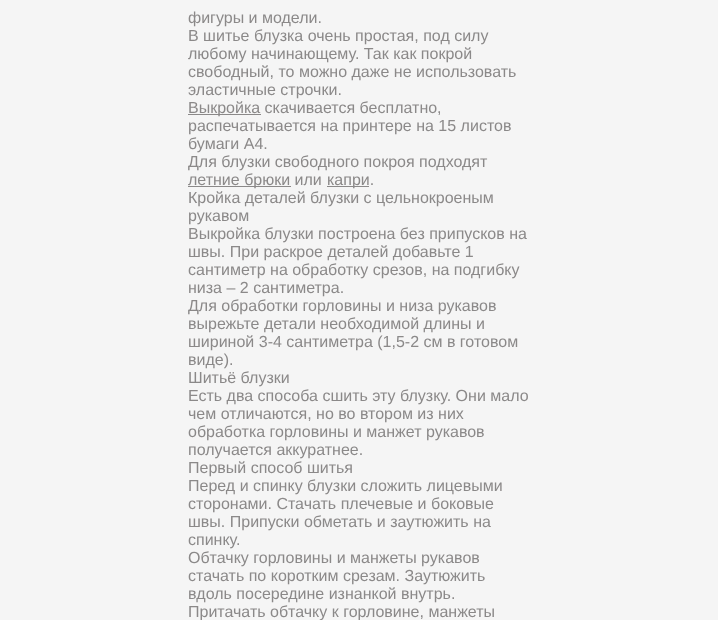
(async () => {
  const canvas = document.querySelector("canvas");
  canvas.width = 718;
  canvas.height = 620;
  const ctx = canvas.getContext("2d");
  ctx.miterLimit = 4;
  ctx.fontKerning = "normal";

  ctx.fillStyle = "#f5f5f5";
  ctx.fillRect(0, 0, 718, 620);
  for (const [x, y, w, h, color] of [
    [188, 114, 73, 1, "#8b8989"],
    [188, 186, 103, 1, "#8b8989"],
    [327, 186, 42, 1, "#8b8989"],
  ]) {
    ctx.fillStyle = color;
    ctx.fillRect(x, y, w, h);
  }
  ctx.font = "16px Liberation Sans";
  for (const [text, x, y] of [
    ["фигуры и модели.", 188, 23],
    ["В шитье блузка очень простая, под силу", 188, 41],
    ["любому начинающему. Так как покрой", 188, 59],
    ["свободный, то можно даже не использовать", 188, 77],
    ["эластичные строчки.", 188, 95],
    ["Выкройка скачивается бесплатно,", 188, 113],
    ["распечатывается на принтере на 15 листов", 188, 131],
    ["бумаги А4.", 188, 149],
    ["Для блузки свободного покроя подходят", 188, 167],
    ["летние брюки или", 188, 185],
    ["капри.", 327, 185],
    ["Кройка деталей блузки с цельнокроеным", 188, 203],
    ["рукавом", 188, 221],
    ["Выкройка блузки построена без припусков на", 188, 239],
    ["швы. При раскрое деталей добавьте 1", 188, 257],
    ["сантиметр на обработку срезов, на подгибку", 188, 275],
    ["низа – 2 сантиметра.", 188, 293],
    ["Для обработки горловины и низа рукавов", 188, 311],
    ["вырежьте детали необходимой длины и", 188, 329],
    ["шириной 3-4 сантиметра (1,5-2 см в готовом", 188, 347],
    ["виде).", 188, 365],
    ["Шитьё блузки", 188, 383],
    ["Есть два способа сшить эту блузку. Они мало", 188, 401],
    ["чем отличаются, но во втором из них", 188, 419],
    ["обработка горловины и манжет рукавов", 188, 437],
    ["получается аккуратнее.", 188, 455],
    ["Первый способ шитья", 188, 473],
    ["Перед и спинку блузки сложить лицевыми", 188, 491],
    ["сторонами. Стачать плечевые и боковые", 188, 509],
    ["швы. Припуски обметать и заутюжить на", 188, 527],
    ["спинку.", 188, 545],
    ["Обтачку горловины и манжеты рукавов", 188, 563],
    ["стачать по коротким срезам. Заутюжить", 188, 581],
    ["вдоль посередине изнанкой внутрь.", 188, 599],
    ["Притачать обтачку к горловине, манжеты", 188, 617],
  ]) {
    ctx.fillText(text, x, y);
  }
})();
